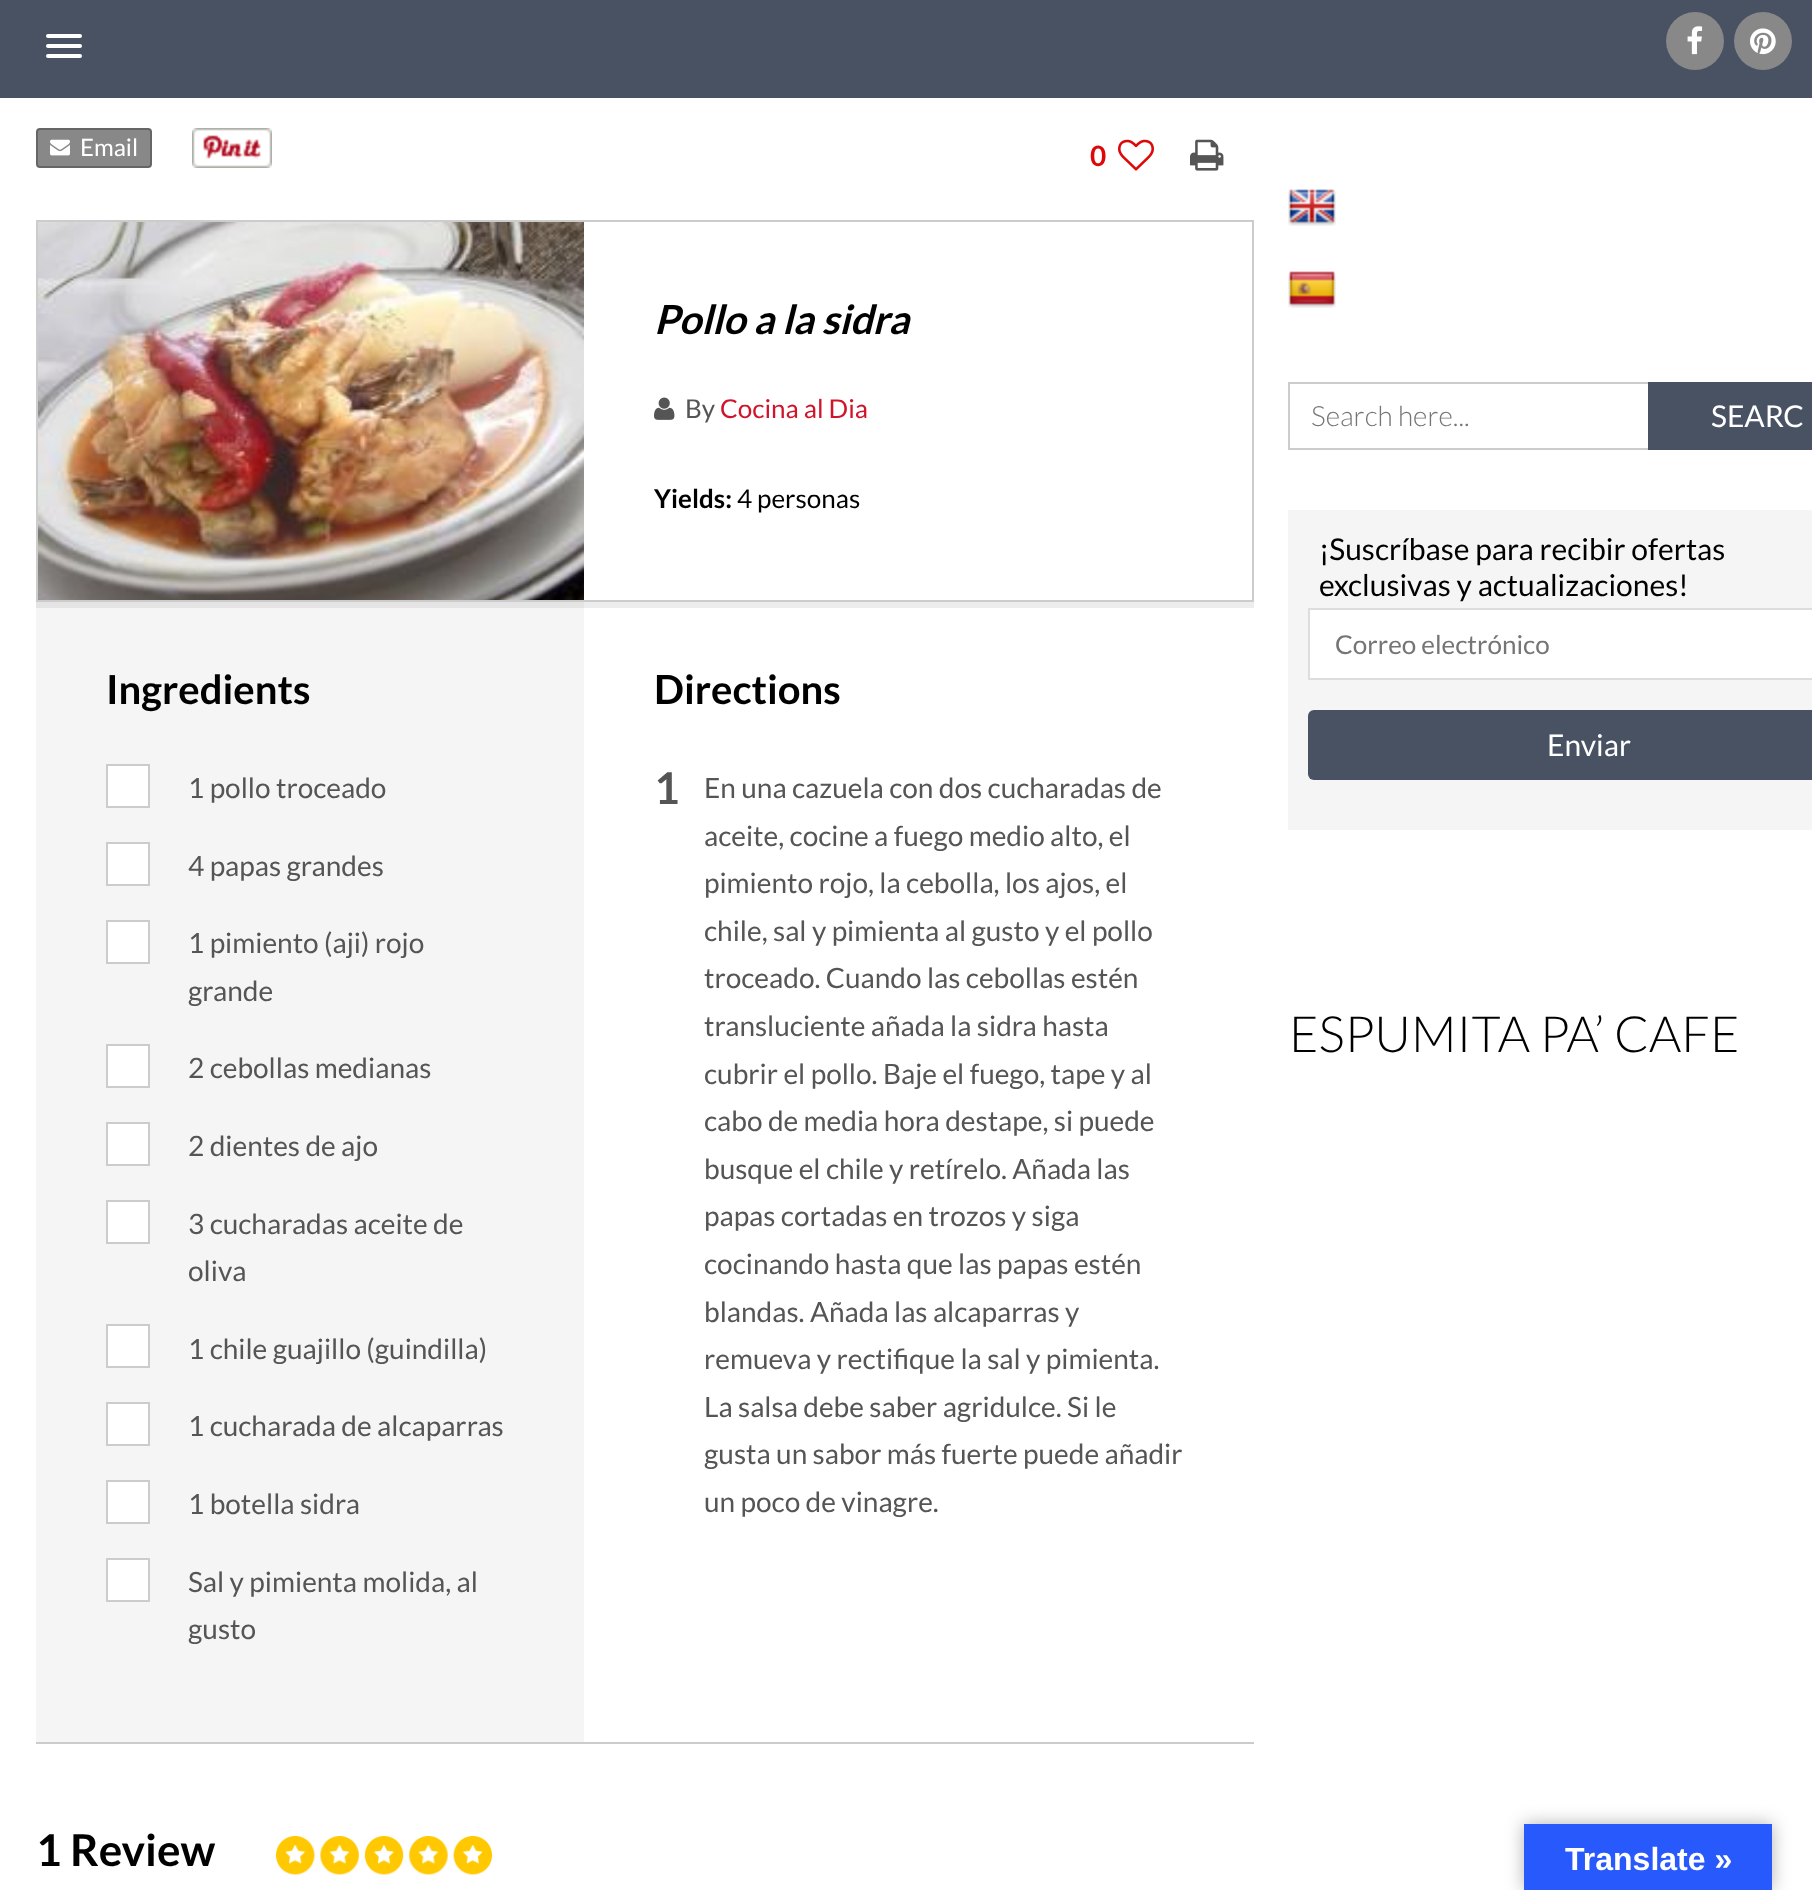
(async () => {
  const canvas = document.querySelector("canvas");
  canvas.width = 1812;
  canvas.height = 1890;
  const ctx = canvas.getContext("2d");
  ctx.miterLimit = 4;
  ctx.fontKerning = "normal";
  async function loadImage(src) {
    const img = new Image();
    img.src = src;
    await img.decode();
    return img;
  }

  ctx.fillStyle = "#ffffff";
  ctx.fillRect(0, 0, 1812, 1890);
  ctx.fillStyle = "#485263";
  ctx.fillRect(0, 0, 1812, 98);
  ctx.fillStyle = "#ffffff";
  ctx.beginPath();
  ctx.roundRect(46, 34, 36, 4, 2);
  ctx.fill();
  ctx.beginPath();
  ctx.roundRect(46, 44, 36, 4, 2);
  ctx.fill();
  ctx.beginPath();
  ctx.roundRect(46, 54, 36, 4, 2);
  ctx.fill();
  ctx.fillStyle = "#888888";
  ctx.beginPath();
  ctx.arc(1695, 41, 29, 0, Math.PI * 2);
  ctx.fill();
  ctx.drawImage(await loadImage("img/1.png"), 1687, 26, 16, 29);
  ctx.beginPath();
  ctx.arc(1763, 41, 29, 0, Math.PI * 2);
  ctx.fill();
  ctx.drawImage(await loadImage("img/2.png"), 1750, 28, 26, 27);
  ctx.fillStyle = "#ededed";
  ctx.fillRect(584, 602, 670, 6);
  ctx.fillStyle = "#888888";
  ctx.beginPath();
  ctx.roundRect(37, 129, 114, 38, 3);
  ctx.fill();
  ctx.strokeStyle = "#666666";
  ctx.lineWidth = 2;
  ctx.stroke();
  ctx.drawImage(await loadImage("img/3.png"), 50, 139, 20, 17);
  ctx.drawImage(await loadImage("img/4.png"), 192, 128, 80, 40);
  ctx.drawImage(await loadImage("img/5.png"), 1118, 139, 36, 32);
  ctx.drawImage(await loadImage("img/6.png"), 1190, 139, 34, 32);
  ctx.fillStyle = "#cccccc";
  ctx.fillRect(36, 1742, 1218, 2);
  ctx.strokeStyle = "#cccccc";
  ctx.strokeRect(37, 221, 1216, 380);
  ctx.drawImage(await loadImage("img/7.png"), 38, 222, 546, 378);
  ctx.drawImage(await loadImage("img/8.png"), 654, 397, 21, 23);
  ctx.fillStyle = "#f5f5f5";
  ctx.fillRect(36, 608, 548, 1134);
  ctx.fillStyle = "#e4e4e4";
  ctx.fillRect(36, 602, 548, 6);
  ctx.fillStyle = "#ffffff";
  ctx.beginPath();
  ctx.rect(107, 765, 42, 42);
  ctx.fill();
  ctx.stroke();
  ctx.beginPath();
  ctx.rect(107, 843, 42, 42);
  ctx.fill();
  ctx.stroke();
  ctx.beginPath();
  ctx.rect(107, 921, 42, 42);
  ctx.fill();
  ctx.stroke();
  ctx.beginPath();
  ctx.rect(107, 1045, 42, 42);
  ctx.fill();
  ctx.stroke();
  ctx.beginPath();
  ctx.rect(107, 1123, 42, 42);
  ctx.fill();
  ctx.stroke();
  ctx.beginPath();
  ctx.rect(107, 1201, 42, 42);
  ctx.fill();
  ctx.stroke();
  ctx.beginPath();
  ctx.rect(107, 1325, 42, 42);
  ctx.fill();
  ctx.stroke();
  ctx.beginPath();
  ctx.rect(107, 1403, 42, 42);
  ctx.fill();
  ctx.stroke();
  ctx.beginPath();
  ctx.rect(107, 1481, 42, 42);
  ctx.fill();
  ctx.stroke();
  ctx.beginPath();
  ctx.rect(107, 1559, 42, 42);
  ctx.fill();
  ctx.stroke();
  ctx.drawImage(await loadImage("img/9.png"), 276, 1836, 216, 39);
  ctx.drawImage(await loadImage("img/10.png"), 1288, 189, 48, 37);
  ctx.drawImage(await loadImage("img/11.png"), 1288, 271, 48, 37);
  for (const [x, y, w, h, color] of [
    [1288, 382, 360, 2, "#cccccc"],
    [1288, 448, 360, 2, "#cccccc"],
    [1288, 382, 2, 68, "#cccccc"],
    [1648, 382, 164, 68, "#485263"],
    [1288, 510, 524, 320, "#f5f5f5"],
  ]) {
    ctx.fillStyle = color;
    ctx.fillRect(x, y, w, h);
  }
  ctx.fillStyle = "#ffffff";
  ctx.beginPath();
  ctx.rect(1309, 609, 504, 70);
  ctx.fill();
  ctx.strokeStyle = "#dddddd";
  ctx.stroke();
  ctx.fillStyle = "#485263";
  ctx.beginPath();
  ctx.roundRect(1308, 710, 504, 70, [6, 0, 0, 6]);
  ctx.fill();
  ctx.fillStyle = "rgba(0, 0, 0, 0.3)";
  ctx.filter = "blur(9px)";
  ctx.beginPath();
  ctx.rect(1524, 1824, 248, 66);
  ctx.fill();
  ctx.filter = "none";
  ctx.fillStyle = "#2859fc";
  ctx.fillRect(1524, 1824, 248, 66);
  ctx.font = "24px Lato";
  ctx.fillStyle = "#ffffff";
  ctx.fillText("Email", 80, 156);
  ctx.font = "bold 28px Lato";
  ctx.fillStyle = "#de0808";
  ctx.fillText("0", 1090, 166);
  ctx.font = "italic bold 40px Lato";
  ctx.fillStyle = "#000000";
  ctx.fillText("Pollo a la sidra", 654, 334);
  ctx.font = "26px Lato";
  ctx.fillStyle = "#555555";
  ctx.fillText("By", 685, 418);
  ctx.fillStyle = "#cf142b";
  ctx.fillText("Cocina al Dia", 720, 418);
  ctx.font = "bold 26px Lato";
  ctx.fillStyle = "#000000";
  ctx.fillText("Yields:", 654, 508);
  ctx.font = "26px Lato";
  ctx.fillText("4 personas", 737, 508);
  ctx.font = "bold 40px Lato";
  ctx.fillText("Ingredients", 106, 704);
  ctx.font = "28px Lato";
  ctx.fillStyle = "#555555";
  for (const [text, x, y] of [
    ["1 pollo troceado", 188, 798],
    ["4 papas grandes", 188, 876],
    ["1 pimiento (aji) rojo", 188, 953],
    ["grande", 188, 1001],
    ["2 cebollas medianas", 188, 1078],
    ["2 dientes de ajo", 188, 1156],
    ["3 cucharadas aceite de", 188, 1234],
    ["oliva", 188, 1281],
    ["1 chile guajillo (guindilla)", 188, 1359],
    ["1 cucharada de alcaparras", 188, 1436],
    ["1 botella sidra", 188, 1514],
    ["Sal y pimienta molida, al", 188, 1592],
    ["gusto", 188, 1639],
  ]) {
    ctx.fillText(text, x, y);
  }
  ctx.font = "bold 40px Lato";
  ctx.fillStyle = "#000000";
  ctx.fillText("Directions", 654, 704);
  ctx.font = "bold 44px Lato";
  ctx.fillStyle = "#555555";
  ctx.fillText("1", 654, 804);
  ctx.font = "28px Lato";
  for (const [text, x, y] of [
    ["En una cazuela con dos cucharadas de", 704, 798],
    ["aceite, cocine a fuego medio alto, el", 704, 846],
    ["pimiento rojo, la cebolla, los ajos, el", 704, 893],
    ["chile, sal y pimienta al gusto y el pollo", 704, 941],
    ["troceado. Cuando las cebollas estén", 704, 988],
    ["transluciente añada la sidra hasta", 704, 1036],
    ["cubrir el pollo. Baje el fuego, tape y al", 704, 1084],
    ["cabo de media hora destape, si puede", 704, 1131],
    ["busque el chile y retírelo. Añada las", 704, 1179],
    ["papas cortadas en trozos y siga", 704, 1226],
    ["cocinando hasta que las papas estén", 704, 1274],
    ["blandas. Añada las alcaparras y", 704, 1322],
    ["remueva y rectifique la sal y pimienta.", 704, 1369],
    ["La salsa debe saber agridulce. Si le", 704, 1417],
    ["gusta un sabor más fuerte puede añadir", 704, 1464],
    ["un poco de vinagre.", 704, 1512],
  ]) {
    ctx.fillText(text, x, y);
  }
  ctx.font = "bold 44px Lato";
  ctx.fillStyle = "#000000";
  ctx.fillText("1 Review", 36, 1866);
  ctx.font = "300 28px Lato";
  ctx.fillStyle = "#757575";
  ctx.fillText("Search here...", 1311, 426);
  ctx.font = "30px Lato";
  ctx.fillStyle = "#ffffff";
  ctx.fillText("SEARC", 1711, 427);
  ctx.fillStyle = "#000000";
  ctx.fillText("¡Suscríbase para recibir ofertas", 1319, 560);
  ctx.fillText("exclusivas y actualizaciones!", 1319, 596);
  ctx.font = "26px Lato";
  ctx.fillStyle = "#757575";
  ctx.fillText("Correo electrónico", 1335, 654);
  ctx.font = "30px Lato";
  ctx.fillStyle = "#ffffff";
  ctx.fillText("Enviar", 1547, 756);
  ctx.font = "300 50px Lato";
  ctx.fillStyle = "#000000";
  ctx.fillText("ESPUMITA PA’ CAFE", 1289, 1052);
  ctx.font = "bold 32px Liberation Sans";
  ctx.fillStyle = "#ffffff";
  ctx.fillText("Translate »", 1565, 1870);
})();
